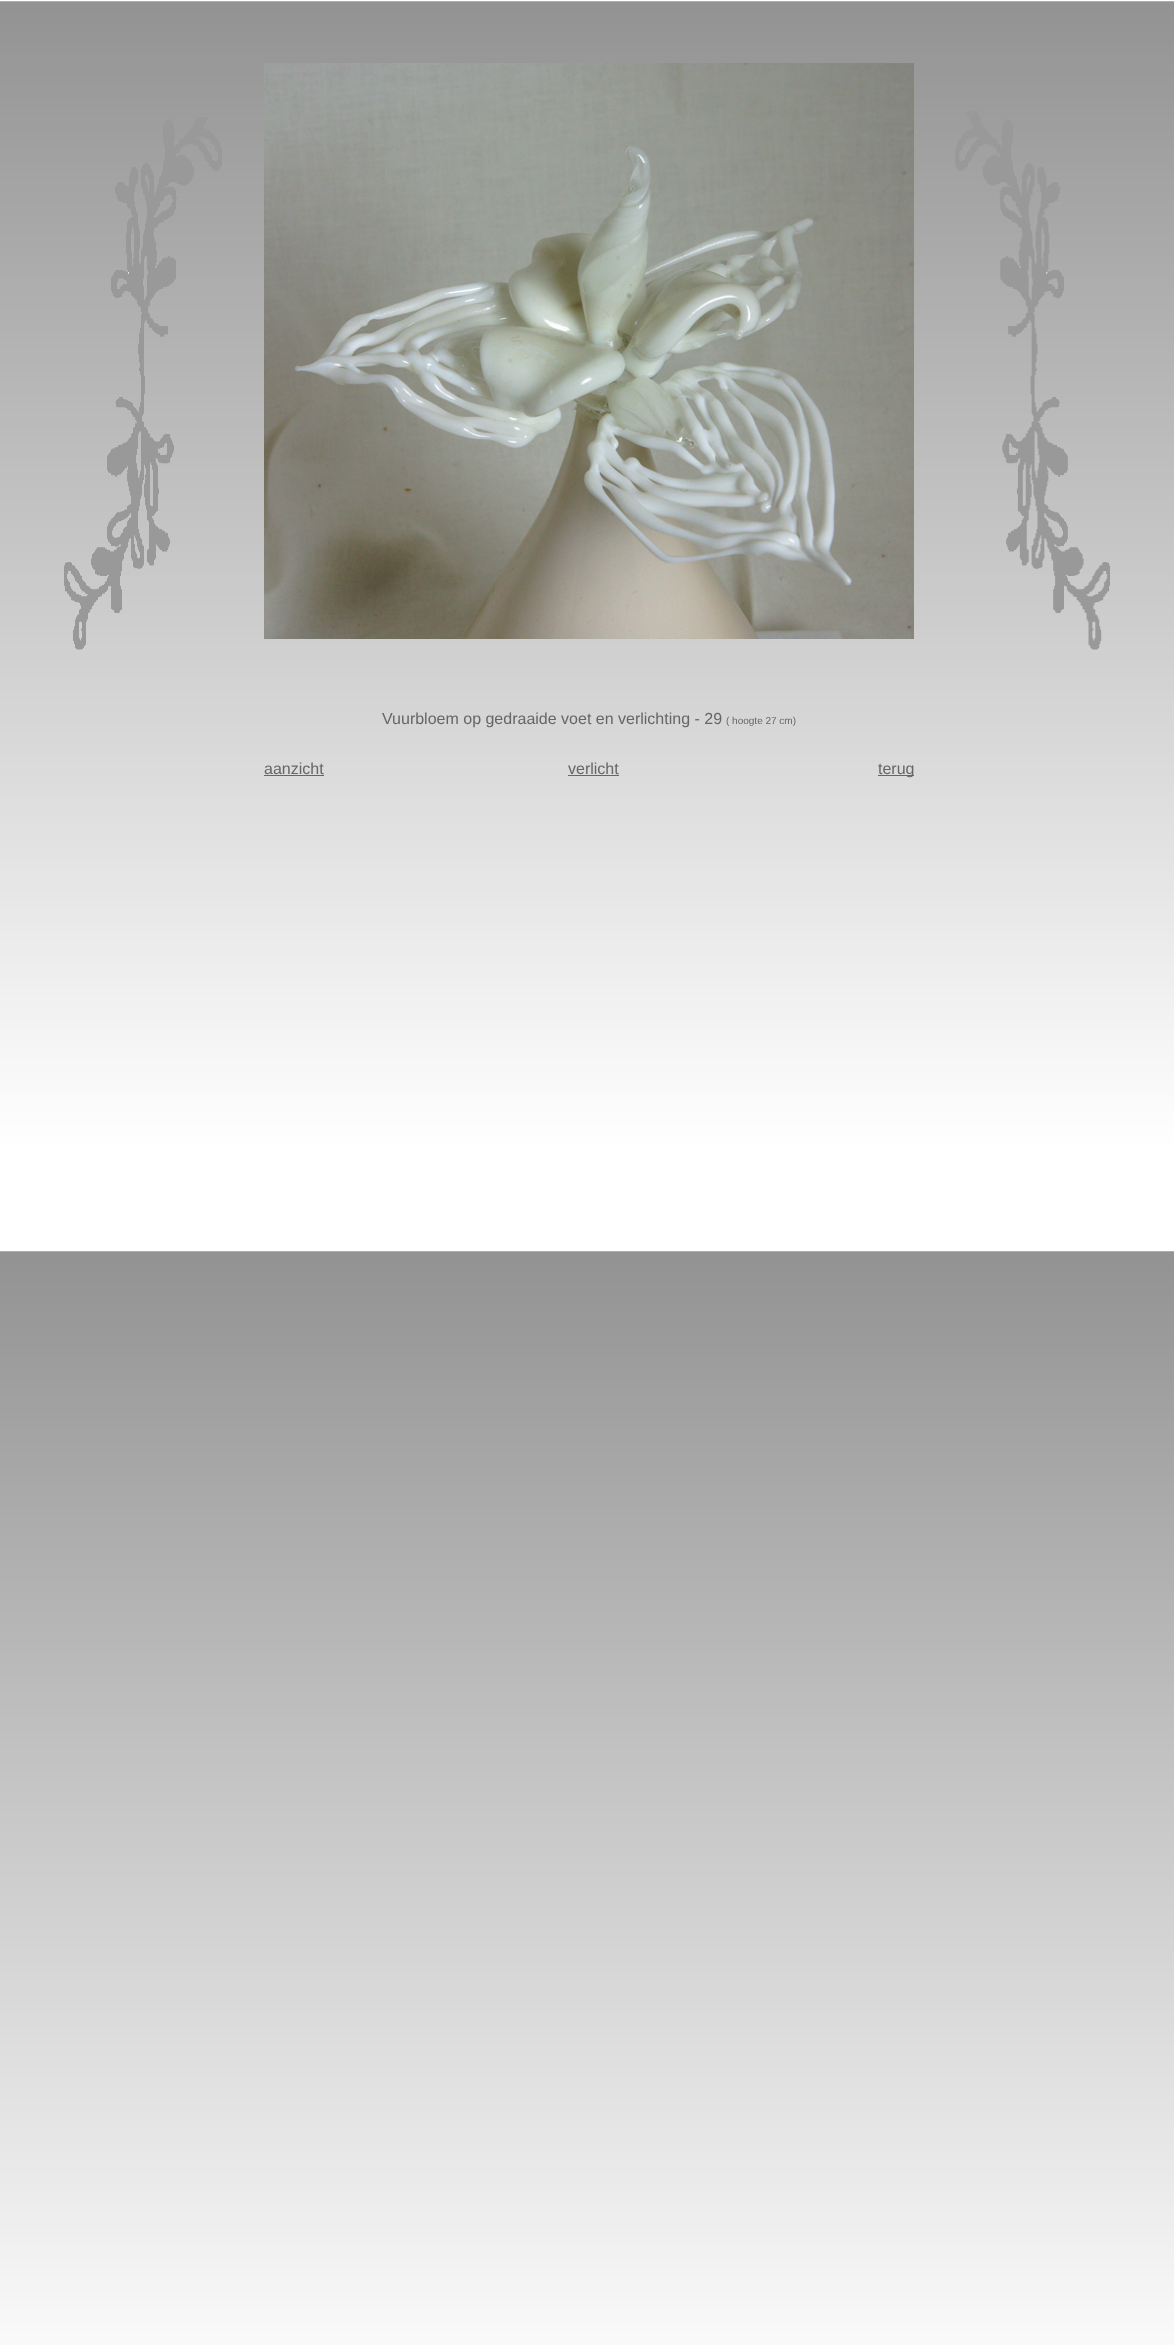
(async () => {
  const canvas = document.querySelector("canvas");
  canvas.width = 1174;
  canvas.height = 2345;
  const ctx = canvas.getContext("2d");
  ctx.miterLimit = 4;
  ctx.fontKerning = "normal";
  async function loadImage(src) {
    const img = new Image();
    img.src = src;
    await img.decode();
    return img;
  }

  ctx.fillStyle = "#ffffff";
  ctx.fillRect(0, 0, 1174, 2345);
  ctx.drawImage(await loadImage("img/1.png"), 0, 1, 1174, 2344);
  ctx.drawImage(await loadImage("img/2.png"), 64, 117, 158, 533);
  ctx.drawImage(await loadImage("img/3.png"), 955, 111, 155, 539);
  ctx.drawImage(await loadImage("img/4.png"), 264, 63, 650, 576);
  for (const [x, y, w, h, color] of [
    [264, 775, 60, 1, "#666666"],
    [568, 775, 51, 1, "#666666"],
    [878, 775, 36, 1, "#666666"],
  ]) {
    ctx.fillStyle = color;
    ctx.fillRect(x, y, w, h);
  }
  ctx.font = "16px Liberation Sans";
  ctx.fillText("Vuurbloem op gedraaide voet en verlichting - 29", 382, 724);
  ctx.font = "10px Liberation Sans";
  ctx.fillText("( hoogte 27 cm)", 726, 724);
  ctx.font = "16px Liberation Sans";
  for (const [text, x, y] of [
    ["aanzicht", 264, 774],
    ["verlicht", 568, 774],
    ["terug", 878, 774],
  ]) {
    ctx.fillText(text, x, y);
  }
})();
